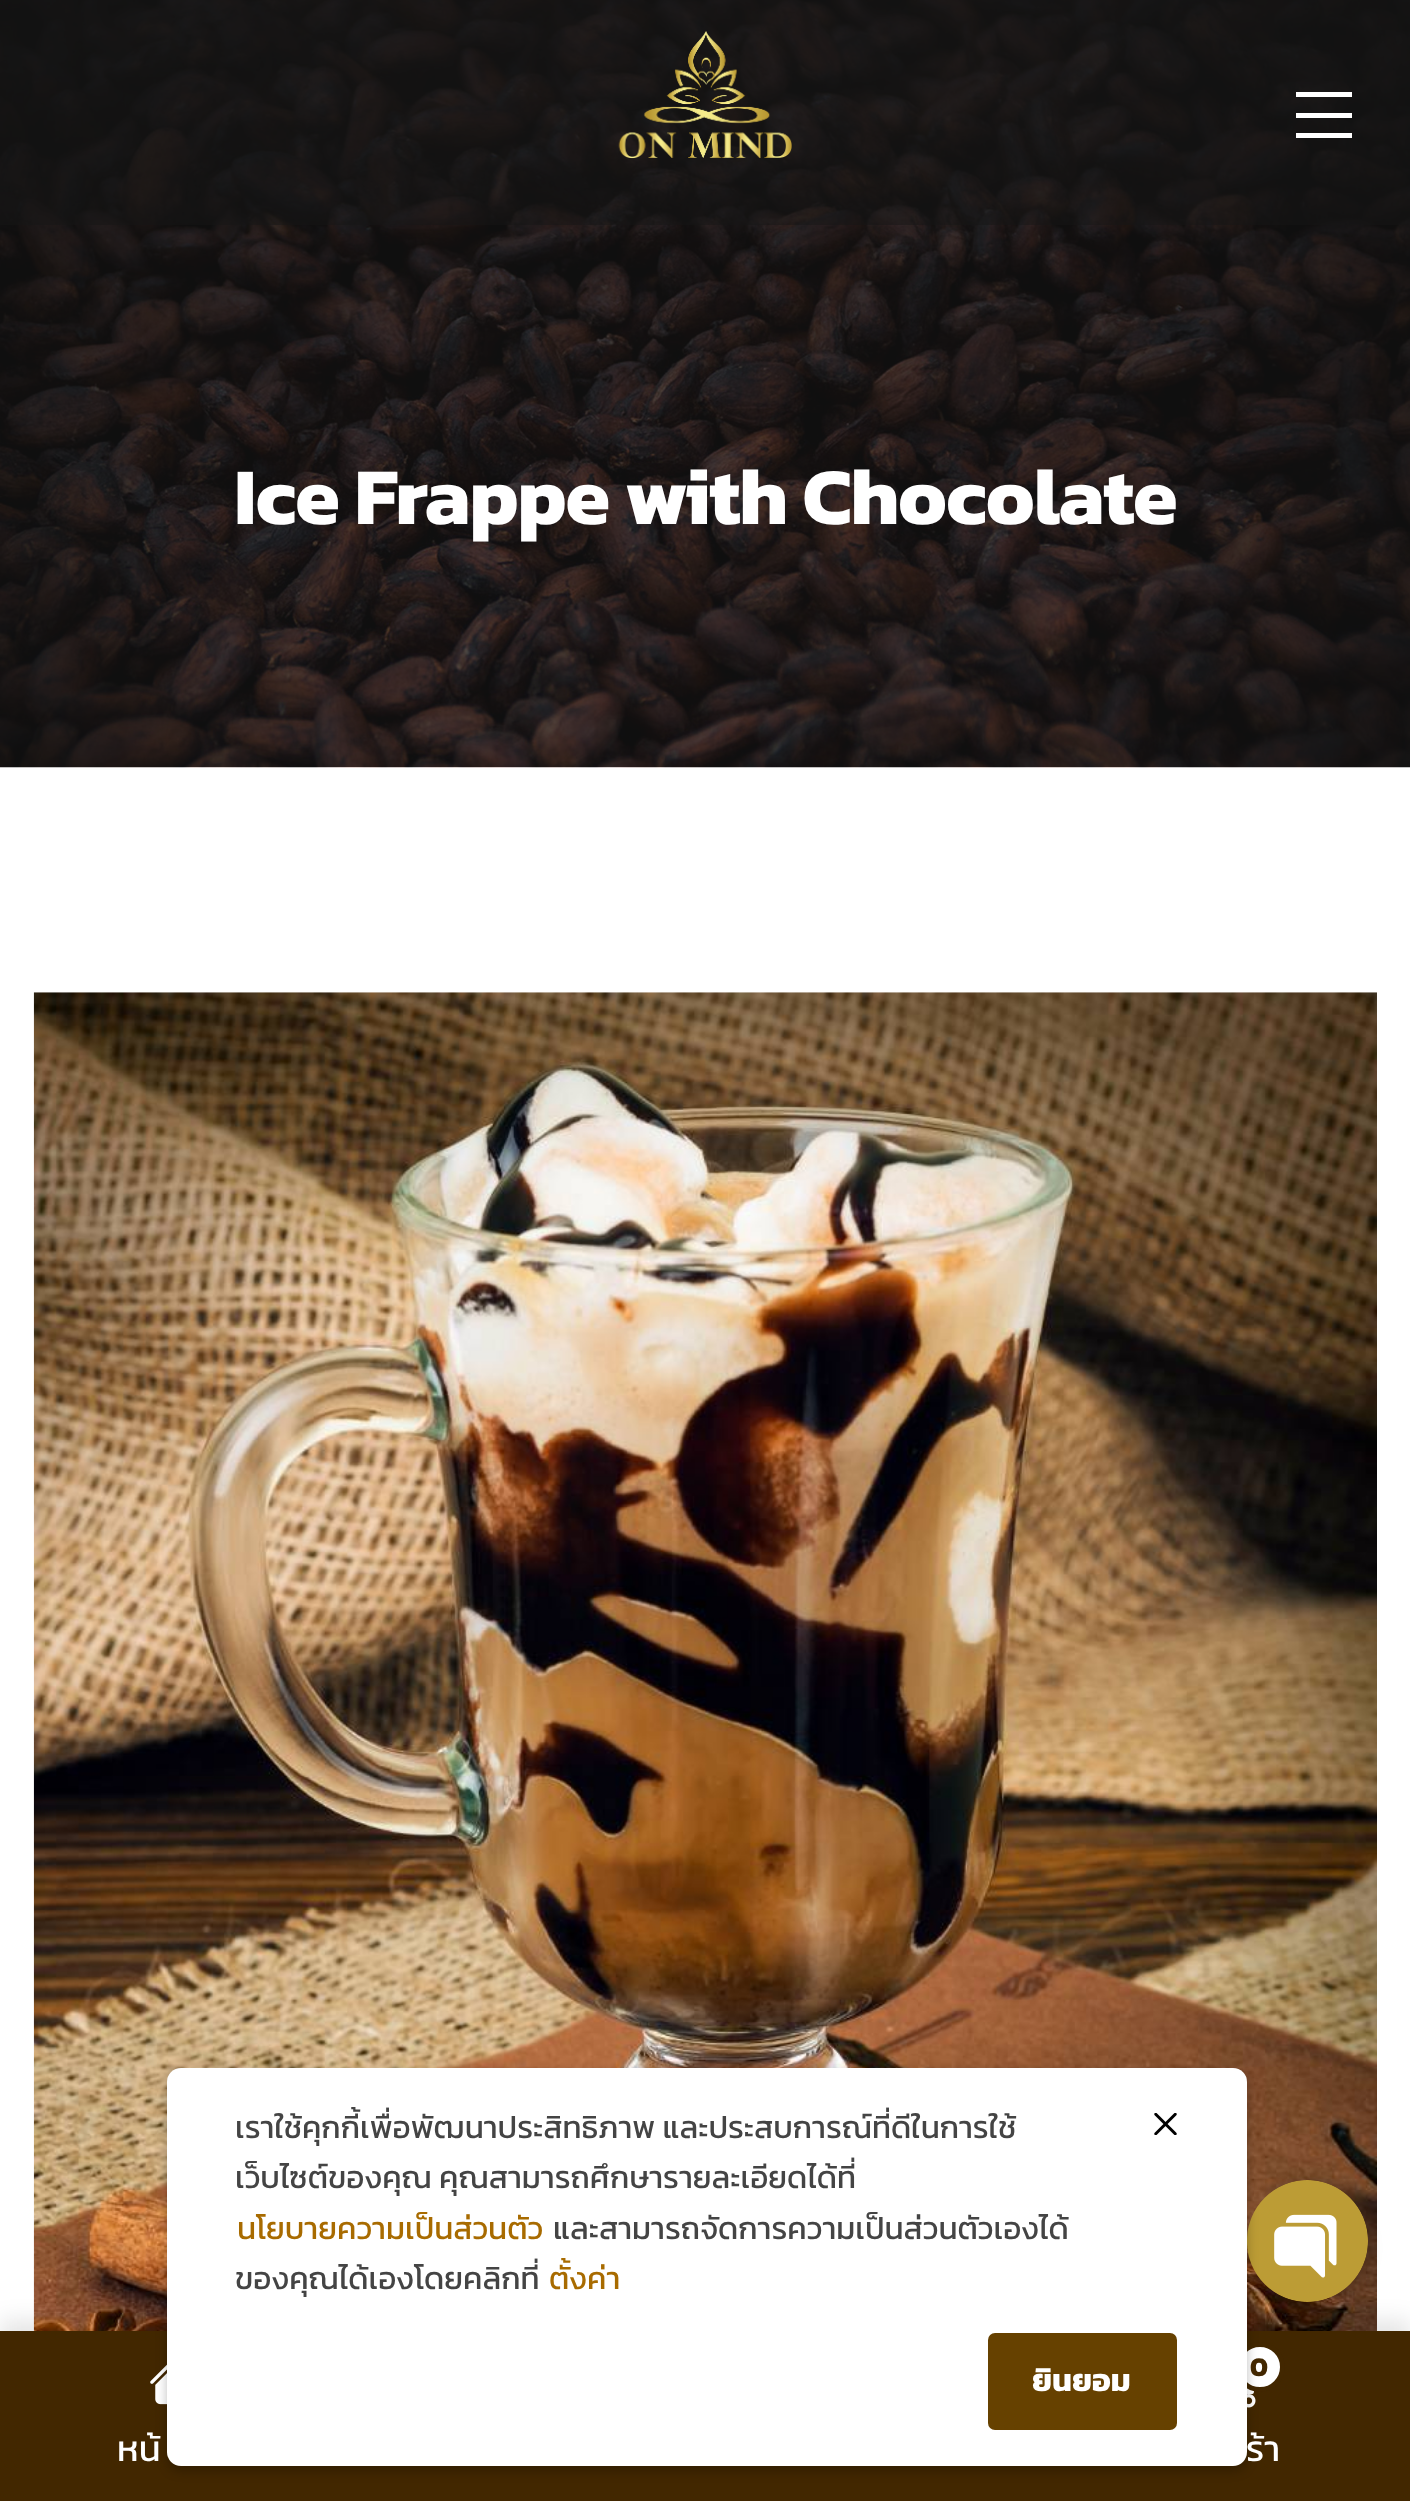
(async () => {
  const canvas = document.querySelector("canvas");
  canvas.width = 1410;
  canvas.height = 2501;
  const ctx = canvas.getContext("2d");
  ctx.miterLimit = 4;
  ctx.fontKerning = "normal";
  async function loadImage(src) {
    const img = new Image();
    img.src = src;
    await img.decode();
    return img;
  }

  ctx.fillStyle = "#ffffff";
  ctx.fillRect(0, 0, 1410, 2501);
  ctx.drawImage(await loadImage("img/2.png"), 0, 0, 1410, 768);
  ctx.fillStyle = "rgba(21, 21, 21, 0.5)";
  ctx.fillRect(0, 0, 1410, 225);
  ctx.drawImage(await loadImage("img/1.png"), 618, 31, 174, 128);
  for (const [x, y, w, h, color] of [
    [1296, 92, 56, 5, "#ffffff"],
    [1296, 113, 56, 5, "#ffffff"],
    [1296, 133, 56, 5, "#ffffff"],
  ]) {
    ctx.fillStyle = color;
    ctx.fillRect(x, y, w, h);
  }
  ctx.drawImage(await loadImage("img/3.png"), 33, 992, 1344, 1339);
  ctx.fillStyle = "rgba(0, 0, 0, 0.25)";
  ctx.filter = "blur(7px)";
  ctx.beginPath();
  ctx.roundRect(1247, 2187, 121, 122, 60.5);
  ctx.fill();
  ctx.filter = "none";
  ctx.fillStyle = "rgba(0, 0, 0, 0.1)";
  ctx.filter = "blur(11px)";
  ctx.beginPath();
  ctx.rect(0, 2320, 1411, 171);
  ctx.fill();
  ctx.filter = "none";
  ctx.drawImage(await loadImage("img/5.png"), 1247, 2180, 121, 122);
  ctx.fillStyle = "#422700";
  ctx.fillRect(0, 2331, 1410, 170);
  ctx.drawImage(await loadImage("img/6.png"), 150, 2364, 17, 41);
  ctx.drawImage(await loadImage("img/7.png"), 1247, 2388, 9, 20);
  ctx.fillStyle = "#ffffff";
  ctx.beginPath();
  ctx.arc(1260, 2367, 22.5, 0, Math.PI * 2);
  ctx.fill();
  ctx.strokeStyle = "#422700";
  ctx.lineWidth = 5;
  ctx.stroke();
  ctx.fillStyle = "rgba(0, 0, 0, 0.25)";
  ctx.filter = "blur(5.5px)";
  ctx.beginPath();
  ctx.roundRect(167, 2072, 1080, 399, 14);
  ctx.fill();
  ctx.filter = "none";
  ctx.fillStyle = "#ffffff";
  ctx.beginPath();
  ctx.roundRect(167, 2068, 1080, 398, 14);
  ctx.fill();
  ctx.drawImage(await loadImage("img/4.png"), 1154, 2113, 23, 22);
  ctx.fillStyle = "#664100";
  ctx.beginPath();
  ctx.roundRect(988, 2333, 189, 97, 7);
  ctx.fill();
  ctx.letterSpacing = "-1.1px";
  ctx.font = "bold 81px Kanit";
  ctx.fillStyle = "#ffffff";
  ctx.fillText("Ice Frappe with Chocolate", 234, 524);
  ctx.letterSpacing = "0px";
  ctx.font = "31.5px Kanit";
  ctx.fillStyle = "#444444";
  ctx.fillText("เราใช้คุกกี้เพื่อพัฒนาประสิทธิภาพ และประสบการณ์ที่ดีในการใช้", 235, 2138);
  ctx.fillText("เว็บไซต์ของคุณ คุณสามารถศึกษารายละเอียดได้ที่", 235, 2188);
  ctx.fillStyle = "#a86b00";
  ctx.fillText("นโยบายความเป็นส่วนตัว", 237, 2239);
  ctx.fillStyle = "#444444";
  ctx.fillText("และสามารถจัดการความเป็นส่วนตัวเองได้", 553, 2239);
  ctx.fillText("ของคุณได้เองโดยคลิกที่", 235, 2289);
  ctx.fillStyle = "#a86b00";
  ctx.fillText("ตั้งค่า", 549, 2289);
  ctx.font = "bold 31.5px Kanit";
  ctx.fillStyle = "#ffffff";
  ctx.fillText("ยินยอม", 1032, 2391);
  ctx.font = "36px Kanit";
  ctx.fillText("หน้", 117, 2461);
  ctx.font = "bold 27px Kanit";
  ctx.fillStyle = "#422700";
  ctx.fillText("0", 1250, 2376);
  ctx.font = "36px Kanit";
  ctx.fillStyle = "#ffffff";
  ctx.fillText("ร้า", 1246, 2461);
})();
